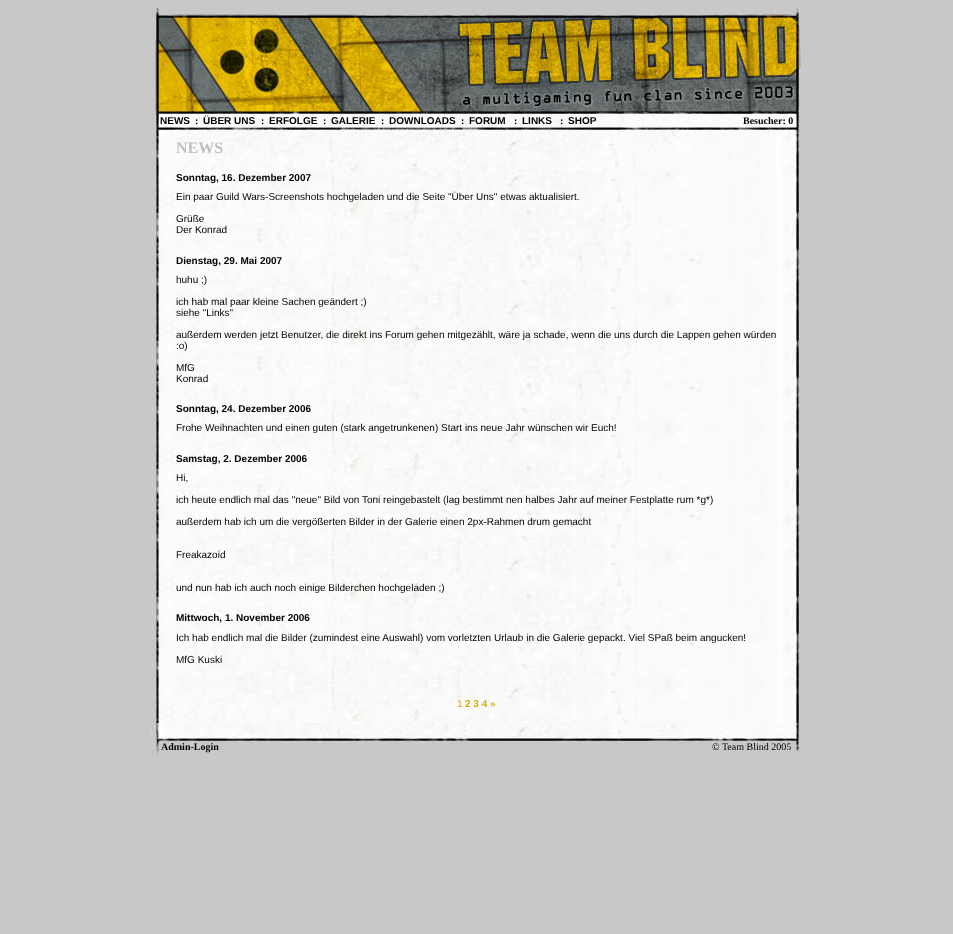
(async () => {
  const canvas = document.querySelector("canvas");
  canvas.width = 953;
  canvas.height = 934;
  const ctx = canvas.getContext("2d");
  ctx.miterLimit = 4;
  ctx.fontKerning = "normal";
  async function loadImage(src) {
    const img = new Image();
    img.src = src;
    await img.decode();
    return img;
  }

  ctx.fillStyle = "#c8c8c8";
  ctx.fillRect(0, 0, 953, 934);
  ctx.drawImage(await loadImage("img/1.png"), 151, 8, 654, 96);
  ctx.drawImage(await loadImage("img/2.png"), 149, 104, 653, 32);
  ctx.drawImage(await loadImage("img/3.png"), 149, 136, 24, 587);
  ctx.fillStyle = "#ffffff";
  ctx.fillRect(776, 136, 5, 587);
  ctx.drawImage(await loadImage("img/4.png"), 173, 136, 603, 587);
  ctx.drawImage(await loadImage("img/5.png"), 175, 171, 603, 550);
  ctx.drawImage(await loadImage("img/6.png"), 781, 136, 24, 587);
  ctx.drawImage(await loadImage("img/7.png"), 151, 723, 654, 32);
  ctx.font = "bold 10px Liberation Sans";
  ctx.fillStyle = "#000000";
  ctx.fillText("NEWS", 160, 124);
  ctx.font = "bold 10px Liberation Serif";
  ctx.fillText(":", 195, 124);
  ctx.font = "bold 10px Liberation Sans";
  ctx.fillText("ÜBER UNS", 203, 124);
  ctx.font = "bold 10px Liberation Serif";
  ctx.fillText(":", 261, 124);
  ctx.font = "bold 10px Liberation Sans";
  ctx.fillText("ERFOLGE", 269, 124);
  ctx.font = "bold 10px Liberation Serif";
  ctx.fillText(":", 323, 124);
  ctx.font = "bold 10px Liberation Sans";
  ctx.fillText("GALERIE", 331, 124);
  ctx.font = "bold 10px Liberation Serif";
  ctx.fillText(":", 381, 124);
  ctx.font = "bold 10px Liberation Sans";
  ctx.fillText("DOWNLOADS", 389, 124);
  ctx.font = "bold 10px Liberation Serif";
  ctx.fillText(":", 461, 124);
  ctx.font = "bold 10px Liberation Sans";
  ctx.fillText("FORUM", 469, 124);
  ctx.font = "bold 10px Liberation Serif";
  ctx.fillText(":", 514, 124);
  ctx.font = "bold 10px Liberation Sans";
  ctx.fillText("LINKS", 522, 124);
  ctx.font = "bold 10px Liberation Serif";
  ctx.fillText(":", 560, 124);
  ctx.font = "bold 10px Liberation Sans";
  ctx.fillText("SHOP", 568, 124);
  ctx.font = "bold 10px Liberation Serif";
  ctx.fillText("Besucher: 0", 743, 124);
  ctx.font = "bold 16px Liberation Serif";
  ctx.fillStyle = "#c0c0c0";
  ctx.fillText("NEWS", 176, 153);
  ctx.font = "bold 10px Liberation Sans";
  ctx.fillStyle = "#000000";
  ctx.fillText("Sonntag, 16. Dezember 2007", 176, 181);
  ctx.font = "10px Liberation Sans";
  for (const [text, x, y] of [
    ["Ein paar Guild Wars-Screenshots hochgeladen und die Seite \"Über Uns\" etwas aktualisiert.", 176, 200],
    ["Grüße", 176, 222],
    ["Der Konrad", 176, 233],
  ]) {
    ctx.fillText(text, x, y);
  }
  ctx.font = "bold 10px Liberation Sans";
  ctx.fillText("Dienstag, 29. Mai 2007", 176, 264);
  ctx.font = "10px Liberation Sans";
  for (const [text, x, y] of [
    ["huhu ;)", 176, 283],
    ["ich hab mal paar kleine Sachen geändert ;)", 176, 305],
    ["siehe \"Links\"", 176, 316],
    ["außerdem werden jetzt Benutzer, die direkt ins Forum gehen mitgezählt, wäre ja schade, wenn die uns durch die Lappen gehen würden", 176, 338],
    [":o)", 176, 349],
    ["MfG", 176, 371],
    ["Konrad", 176, 382],
  ]) {
    ctx.fillText(text, x, y);
  }
  ctx.font = "bold 10px Liberation Sans";
  ctx.fillText("Sonntag, 24. Dezember 2006", 176, 412);
  ctx.font = "10px Liberation Sans";
  ctx.fillText("Frohe Weihnachten und einen guten (stark angetrunkenen) Start ins neue Jahr wünschen wir Euch!", 176, 431);
  ctx.font = "bold 10px Liberation Sans";
  ctx.fillText("Samstag, 2. Dezember 2006", 176, 462);
  ctx.font = "10px Liberation Sans";
  for (const [text, x, y] of [
    ["Hi,", 176, 481],
    ["ich heute endlich mal das \"neue\" Bild von Toni reingebastelt (lag bestimmt nen halbes Jahr auf meiner Festplatte rum *g*)", 176, 503],
    ["außerdem hab ich um die vergößerten Bilder in der Galerie einen 2px-Rahmen drum gemacht", 176, 525],
    ["Freakazoid", 176, 558],
    ["und nun hab ich auch noch einige Bilderchen hochgeladen ;)", 176, 591],
  ]) {
    ctx.fillText(text, x, y);
  }
  ctx.font = "bold 10px Liberation Sans";
  ctx.fillText("Mittwoch, 1. November 2006", 176, 621);
  ctx.font = "10px Liberation Sans";
  ctx.fillText("Ich hab endlich mal die Bilder (zumindest eine Auswahl) vom vorletzten Urlaub in die Galerie gepackt. Viel SPaß beim angucken!", 176, 641);
  ctx.fillText("MfG Kuski", 176, 663);
  ctx.fillStyle = "#d6ab01";
  ctx.fillText("1", 457, 707);
  ctx.font = "bold 10px Liberation Sans";
  ctx.fillText("2 3 4 »", 465, 707);
  ctx.font = "bold 10px Liberation Serif";
  ctx.fillStyle = "#000000";
  ctx.fillText("Admin-Login", 161, 750);
  ctx.font = "10px Liberation Serif";
  ctx.fillText("© Team Blind 2005", 712, 750);
})();
